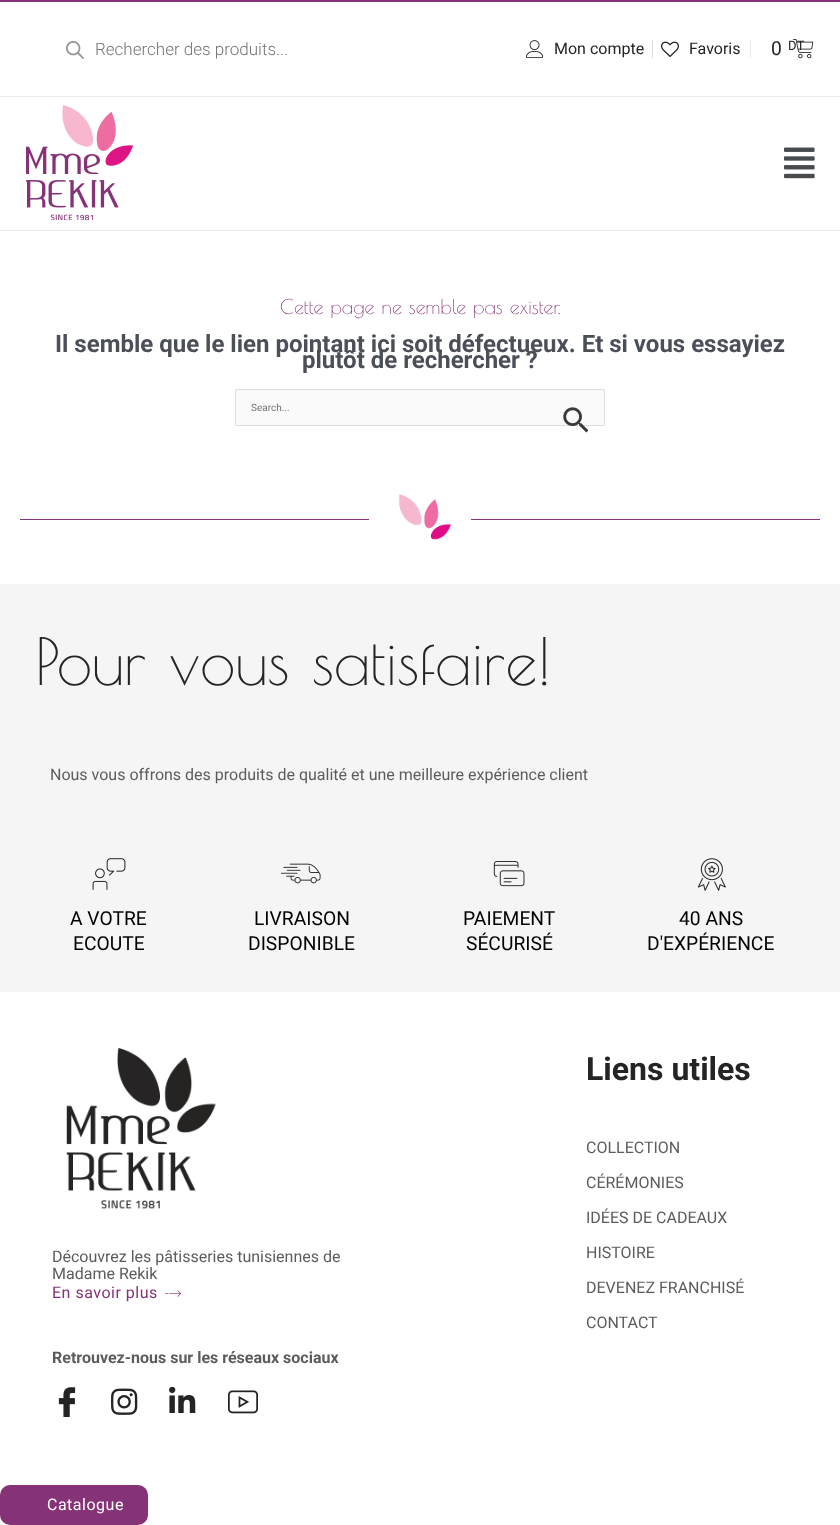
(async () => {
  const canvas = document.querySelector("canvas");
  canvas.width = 840;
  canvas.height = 1525;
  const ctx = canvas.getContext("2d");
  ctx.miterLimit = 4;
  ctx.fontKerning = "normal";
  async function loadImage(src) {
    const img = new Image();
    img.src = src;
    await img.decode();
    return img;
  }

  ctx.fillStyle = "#ffffff";
  ctx.fillRect(0, 0, 840, 1525);
  ctx.fillStyle = "#853376";
  ctx.fillRect(0, 0, 840, 2);
  ctx.drawImage(await loadImage("img/1.png"), 66, 41, 18, 18);
  ctx.fillStyle = "#ebebeb";
  ctx.fillRect(750, 40, 1, 18);
  ctx.drawImage(await loadImage("img/2.png"), 526, 40, 18, 18);
  ctx.fillStyle = "#dddddd";
  ctx.fillRect(652, 40, 1, 18);
  ctx.drawImage(await loadImage("img/3.png"), 661, 41, 18, 16);
  ctx.fillStyle = "#ebebeb";
  ctx.fillRect(0, 96, 840, 1);
  ctx.fillRect(0, 230, 840, 1);
  ctx.drawImage(await loadImage("img/5.png"), 26, 105, 107, 116);
  ctx.drawImage(await loadImage("img/6.png"), 784, 147, 31, 32);
  ctx.fillStyle = "#853376";
  ctx.beginPath();
  ctx.roundRect(0, 1485, 148, 40, 10);
  ctx.fill();
  ctx.fillStyle = "#fafafa";
  ctx.beginPath();
  ctx.roundRect(235.5, 389.5, 369, 36, 1.5);
  ctx.fill();
  ctx.strokeStyle = "#dddddd";
  ctx.stroke();
  ctx.drawImage(await loadImage("img/7.png"), 563, 407, 25, 26);
  ctx.fillStyle = "#853376";
  ctx.fillRect(20, 519, 349, 1);
  ctx.drawImage(await loadImage("img/8.png"), 398, 494, 53, 46);
  ctx.fillRect(471, 519, 349, 1);
  ctx.fillStyle = "#f5f5f5";
  ctx.fillRect(0, 584, 840, 408);
  ctx.drawImage(await loadImage("img/9.png"), 92, 858, 34, 32);
  ctx.drawImage(await loadImage("img/10.png"), 281, 863, 40, 21);
  ctx.drawImage(await loadImage("img/11.png"), 493, 861, 32, 26);
  ctx.drawImage(await loadImage("img/12.png"), 697, 858, 29, 33);
  ctx.drawImage(await loadImage("img/13.png"), 66, 1048, 150, 161);
  ctx.drawImage(await loadImage("img/14.png"), 165, 1290, 16, 7);
  ctx.drawImage(await loadImage("img/15.png"), 58, 1387, 18, 30);
  ctx.drawImage(await loadImage("img/16.png"), 111, 1388, 27, 27);
  ctx.drawImage(await loadImage("img/17.png"), 169, 1387, 27, 26);
  ctx.drawImage(await loadImage("img/18.png"), 228, 1390, 30, 24);
  ctx.font = "300 17px Roboto";
  ctx.fillStyle = "#757575";
  ctx.fillText("Rechercher des produits...", 95, 55);
  ctx.font = "16px Roboto";
  ctx.fillStyle = "#252424";
  ctx.fillText("Mon compte", 554, 54);
  ctx.fillText("Favoris", 689, 54);
  ctx.letterSpacing = "0.5px";
  ctx.font = "19.25px Roboto";
  ctx.fillText("0", 771, 55);
  ctx.font = "13px Roboto";
  ctx.fillText("DT", 788, 50);
  ctx.drawImage(await loadImage("img/4.png"), 793, 39, 21, 20);
  ctx.font = "16px Roboto";
  ctx.fillStyle = "#ffffff";
  ctx.fillText("Catalogue", 47, 1510);
  ctx.letterSpacing = "0px";
  ctx.font = "20px Poiret One";
  ctx.fillStyle = "#853376";
  ctx.fillText("Cette page ne semble pas exister.", 280, 314);
  ctx.font = "bold 24px Roboto";
  ctx.fillStyle = "#4b4f58";
  ctx.fillText("Il semble que le lien pointant ici soit défectueux. Et si vous essayiez", 55, 352);
  ctx.fillText("plutôt de rechercher ?", 302, 368);
  ctx.font = "10px Roboto";
  ctx.fillStyle = "#757575";
  ctx.fillText("Search...", 251, 411);
  ctx.font = "64px Poiret One";
  ctx.fillStyle = "#252424";
  ctx.fillText("Pour vous satisfaire!", 35, 685);
  ctx.font = "16px Roboto";
  ctx.fillStyle = "#5c5c5c";
  ctx.fillText("Nous vous offrons des produits de qualité et une meilleure expérience client", 50, 780);
  ctx.font = "19.25px Roboto";
  ctx.fillStyle = "#000000";
  for (const [text, x, y] of [
    ["A VOTRE", 70, 925],
    ["ECOUTE", 73, 950],
    ["LIVRAISON", 254, 925],
    ["DISPONIBLE", 248, 950],
    ["PAIEMENT", 463, 925],
    ["SÉCURISÉ", 466, 950],
    ["40 ANS", 679, 925],
    ["D'EXPÉRIENCE", 647, 950],
  ]) {
    ctx.fillText(text, x, y);
  }
  ctx.font = "16px Roboto";
  ctx.fillStyle = "#5c5c5c";
  ctx.fillText("Découvrez les pâtisseries tunisiennes de", 52, 1262);
  ctx.fillText("Madame Rekik", 52, 1279);
  ctx.letterSpacing = "0.5px";
  ctx.fillStyle = "#853376";
  ctx.fillText("En savoir plus", 52, 1298);
  ctx.letterSpacing = "0px";
  ctx.font = "bold 16px Roboto";
  ctx.fillStyle = "#5c5c5c";
  ctx.fillText("Retrouvez-nous sur les réseaux sociaux", 52, 1363);
  ctx.font = "bold 32px Roboto";
  ctx.fillStyle = "#252424";
  ctx.fillText("Liens utiles", 586, 1080);
  ctx.font = "16px Roboto";
  ctx.fillStyle = "#5c5c5c";
  for (const [text, x, y] of [
    ["COLLECTION", 586, 1153],
    ["CÉRÉMONIES", 586, 1188],
    ["IDÉES DE CADEAUX", 586, 1223],
    ["HISTOIRE", 586, 1258],
    ["DEVENEZ FRANCHISÉ", 586, 1293],
    ["CONTACT", 586, 1328],
  ]) {
    ctx.fillText(text, x, y);
  }
})();
